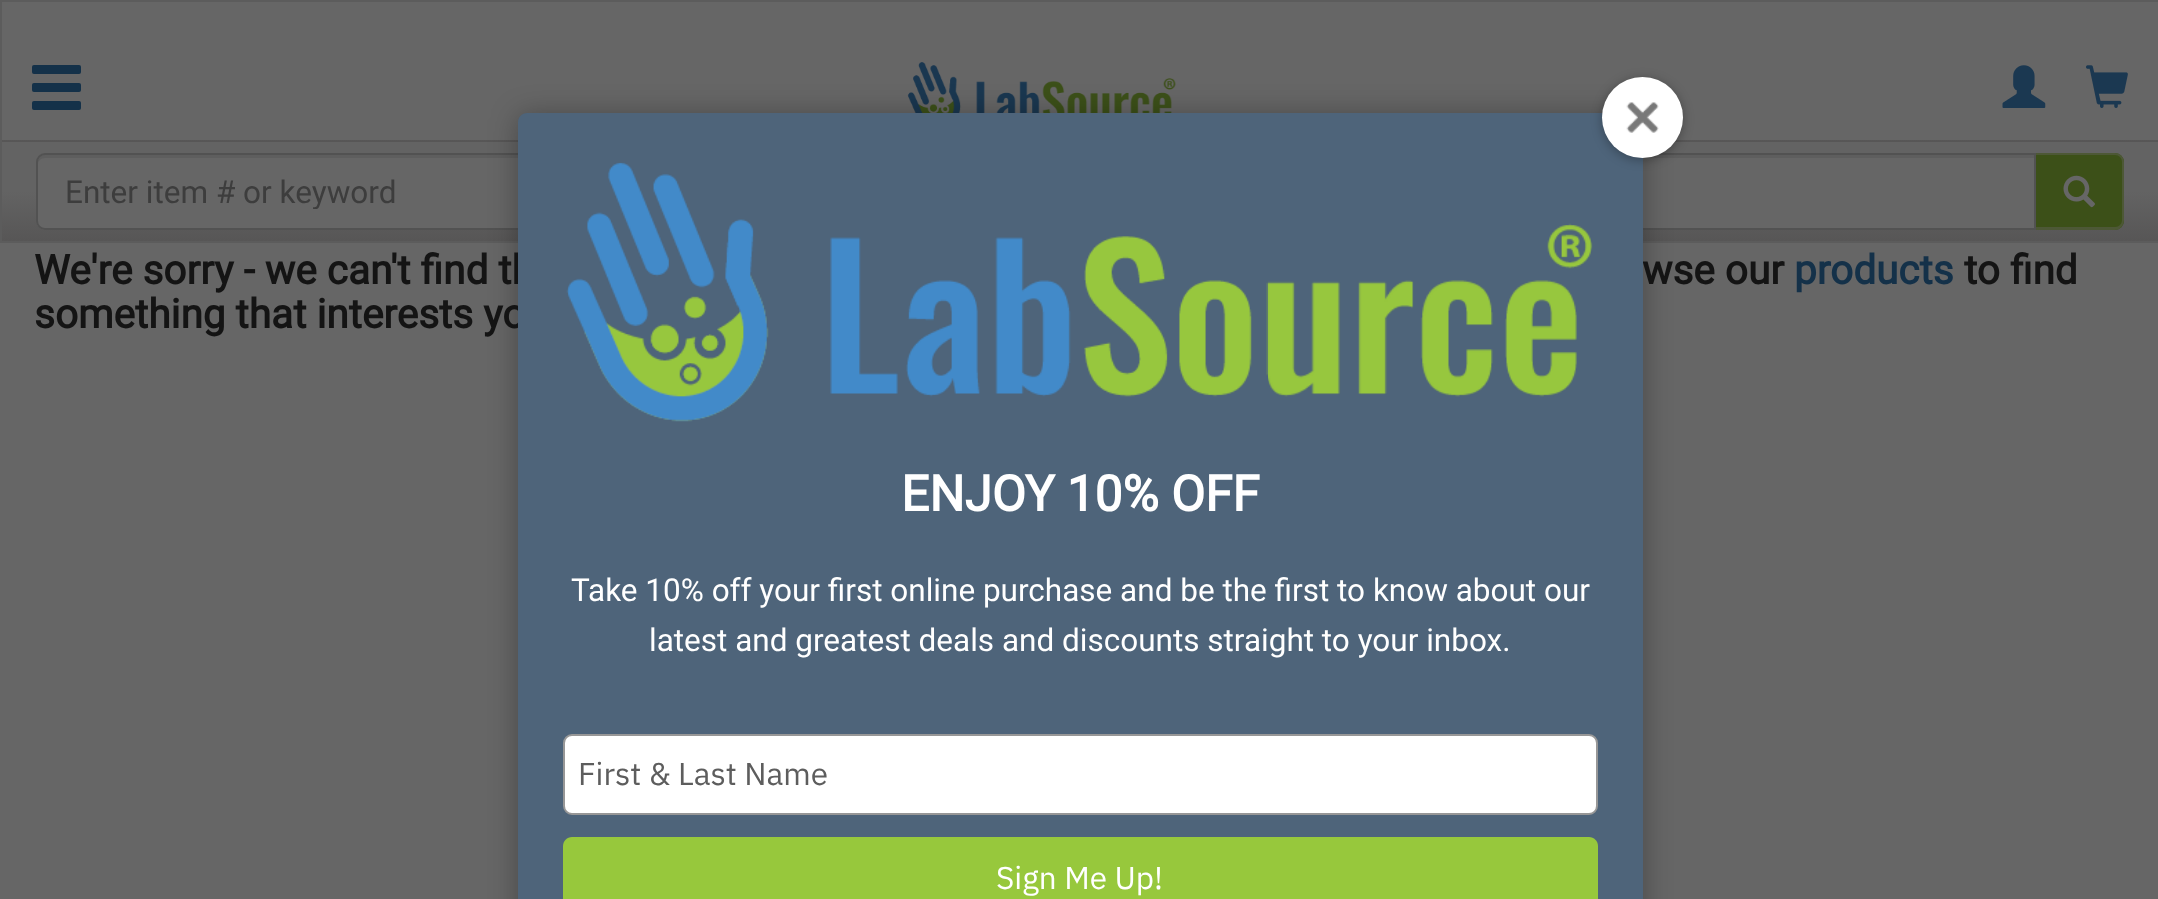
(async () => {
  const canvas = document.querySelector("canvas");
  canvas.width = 2158;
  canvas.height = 899;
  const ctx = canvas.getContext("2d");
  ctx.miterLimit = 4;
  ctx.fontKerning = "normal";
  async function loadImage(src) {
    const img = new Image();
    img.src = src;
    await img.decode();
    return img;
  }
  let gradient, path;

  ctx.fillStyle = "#666666";
  ctx.fillRect(0, 0, 2158, 899);
  ctx.strokeStyle = "#5c5c5c";
  ctx.lineWidth = 2;
  ctx.strokeRect(1, 1, 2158, 241);
  ctx.fillStyle = "#143149";
  ctx.beginPath();
  ctx.roundRect(32, 65, 49, 9, 2);
  ctx.fill();
  ctx.beginPath();
  ctx.roundRect(32, 83, 49, 9, 2);
  ctx.fill();
  ctx.beginPath();
  ctx.roundRect(32, 101, 49, 9, 2);
  ctx.fill();
  ctx.drawImage(await loadImage("img/1.png"), 907, 62, 269, 51);
  ctx.drawImage(await loadImage("img/2.png"), 2002, 65, 44, 43);
  ctx.drawImage(await loadImage("img/3.png"), 2086, 65, 42, 43);
  gradient = ctx.createLinearGradient(1080, 43, 1080, 142);
  gradient.addColorStop(0.5, "#636363");
  gradient.addColorStop(1, "#575656");
  ctx.fillStyle = gradient;
  ctx.fillRect(2, 140, 2156, 2);
  gradient = ctx.createLinearGradient(1080, 142, 1080, 241);
  gradient.addColorStop(0.5, "#636363");
  gradient.addColorStop(1, "#575656");
  ctx.fillStyle = gradient;
  ctx.fillRect(2, 142, 2156, 99);
  ctx.fillStyle = "#666666";
  ctx.beginPath();
  ctx.roundRect(36, 153, 2000, 77, [9, 0, 0, 9]);
  ctx.fill();
  ctx.fillStyle = "#5e5e5e";
  path = new Path2D("M45 158H2034V155H45C40 155 38 160 38 164C38 161 41 158 45 158Z");
  ctx.fill(path);
  ctx.beginPath();
  ctx.roundRect(37, 154, 1998, 75, [8, 0, 0, 8]);
  ctx.strokeStyle = "#525252";
  ctx.stroke();
  ctx.fillStyle = "#3c5018";
  ctx.beginPath();
  ctx.roundRect(2036, 153, 88, 77, [0, 9, 9, 0]);
  ctx.fill();
  ctx.fillStyle = "#4d5836";
  path = new Path2D("M2036 153H2115C2120 153 2124 157 2124 162V220C2124 225 2120 230 2115 230H2036ZM2036 155H2115C2119 155 2122 158 2122 162V220C2122 224 2119 227 2115 227H2036Z");
  ctx.fill(path, "evenodd");
  ctx.drawImage(await loadImage("img/4.png"), 2063, 175, 32, 33);
  ctx.fillStyle = "rgba(0, 0, 0, 0.3)";
  ctx.filter = "blur(14.5px)";
  ctx.beginPath();
  ctx.roundRect(518, 115, 1125, 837, 9);
  ctx.fill();
  ctx.filter = "none";
  ctx.save();
  ctx.beginPath();
  ctx.rect(65, 173, 1942, 36);
  ctx.clip();
  ctx.font = "31.5px Roboto";
  ctx.fillStyle = "#3d3d3d";
  ctx.fillText("Enter item # or keyword", 65, 203);
  ctx.restore();
  ctx.font = "bold 40.5px Roboto";
  ctx.fillStyle = "#141414";
  ctx.fillText("We're sorry - we can't find th", 34, 284);
  ctx.fillText("wse our", 1642, 284);
  ctx.fillStyle = "#143149";
  ctx.fillText("products", 1794, 284);
  ctx.fillStyle = "#141414";
  ctx.fillText("to find", 1964, 284);
  ctx.fillText("something that interests yo", 34, 328);
  ctx.fillStyle = "#4e647a";
  path = new Path2D("M527 113H1634C1639 113 1643 117 1643 122V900H518V122C518 117 522 113 527 113Z");
  ctx.fill(path);
  ctx.drawImage(await loadImage("img/6.png"), 566, 162, 1027, 260);
  ctx.fillStyle = "rgba(0, 0, 0, 0.3)";
  ctx.filter = "blur(5.5px)";
  ctx.beginPath();
  ctx.roundRect(1602, 79, 81, 81, 40.5);
  ctx.fill();
  ctx.filter = "none";
  ctx.fillStyle = "#ffffff";
  ctx.beginPath();
  ctx.arc(1642.5, 117.5, 40.5, 0, Math.PI * 2);
  ctx.fill();
  ctx.drawImage(await loadImage("img/5.png"), 1626, 102, 33, 31);
  ctx.font = "bold 49.5px Roboto";
  ctx.fillText("ENJOY 10% OFF", 901, 511);
  ctx.font = "31.5px Roboto";
  ctx.fillText("Take 10% off your first online purchase and be the first to know about our", 571, 601);
  ctx.fillText("latest and greatest deals and discounts straight to your inbox.", 649, 651);
  ctx.beginPath();
  ctx.roundRect(564, 735, 1033, 79, 8);
  ctx.fill();
  ctx.strokeStyle = "#979797";
  ctx.stroke();
  ctx.font = "31.5px IBM Plex Sans";
  ctx.fillStyle = "#5d5d5d";
  ctx.fillText("First & Last Name", 578, 785);
  ctx.fillStyle = "#97c83c";
  path = new Path2D("M572 837H1589C1594 837 1598 841 1598 846V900H563V846C563 841 567 837 572 837Z");
  ctx.fill(path);
  ctx.fillStyle = "#ffffff";
  ctx.fillText("Sign Me Up!", 996, 889);
})();
